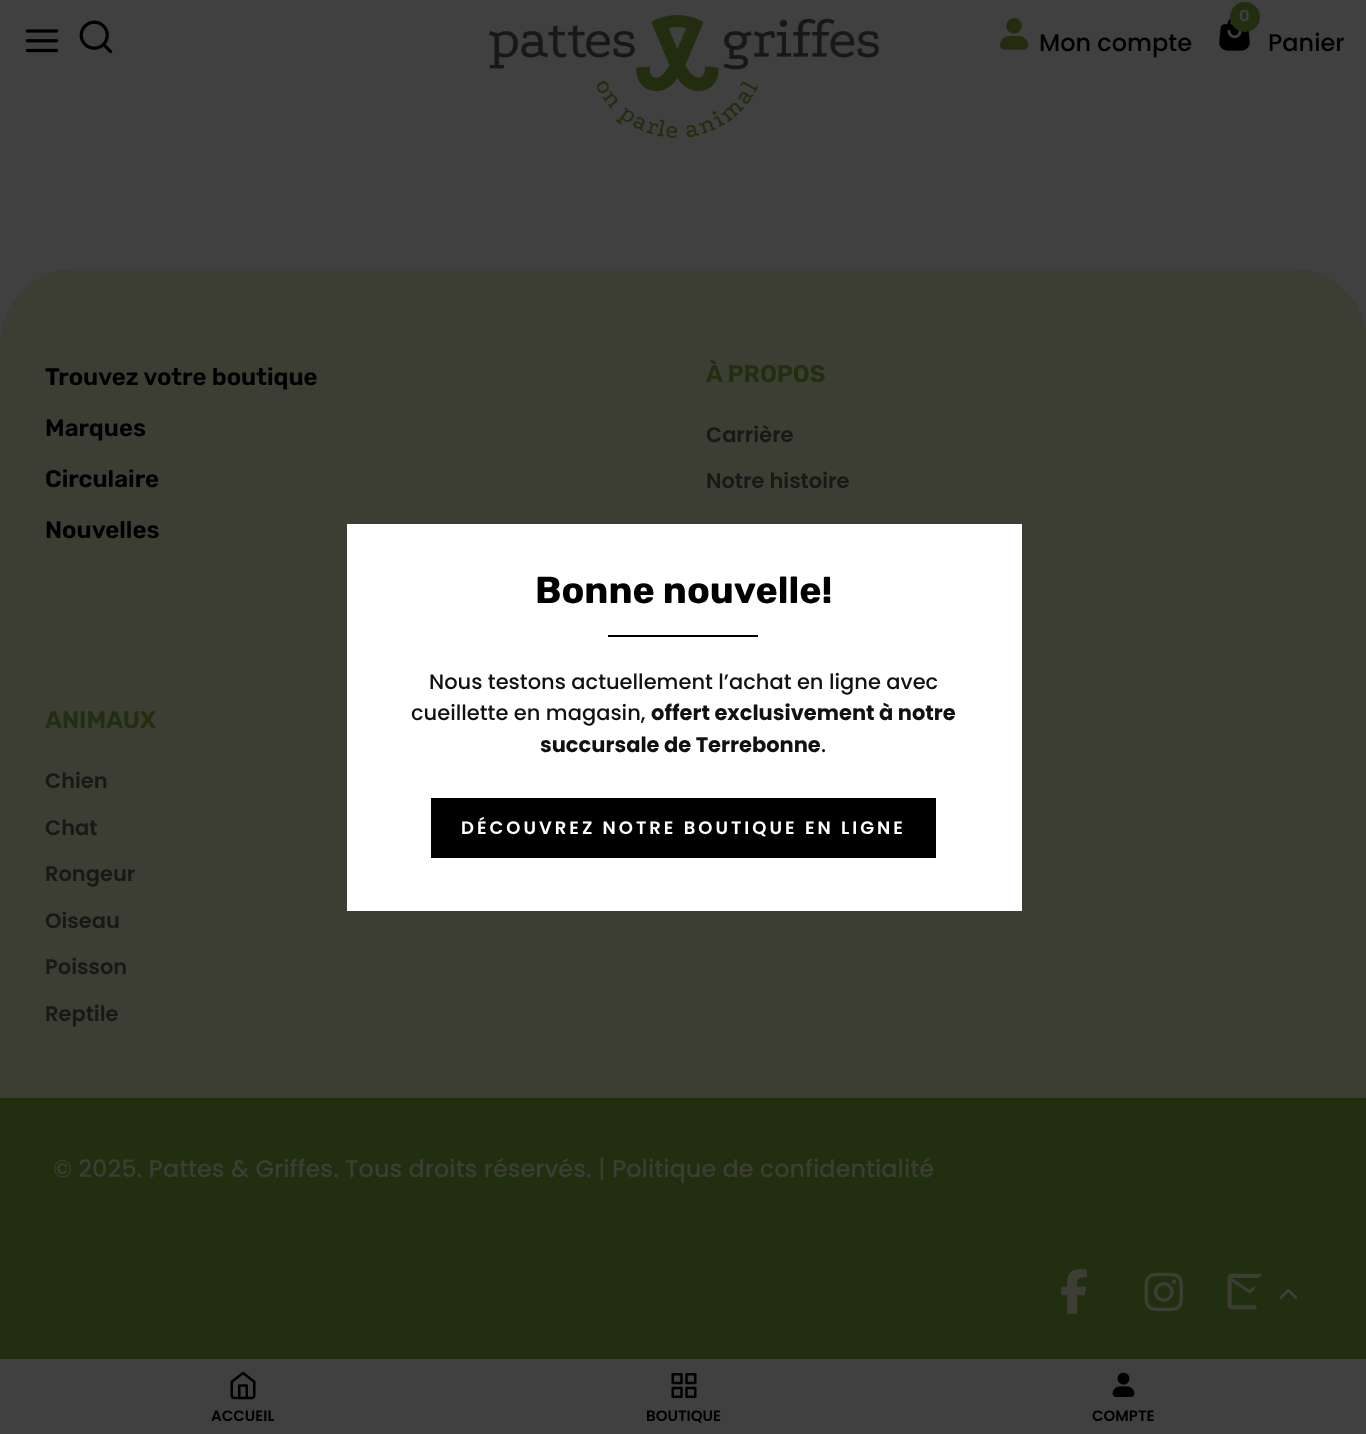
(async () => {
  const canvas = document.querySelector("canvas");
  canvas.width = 1366;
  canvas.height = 1434;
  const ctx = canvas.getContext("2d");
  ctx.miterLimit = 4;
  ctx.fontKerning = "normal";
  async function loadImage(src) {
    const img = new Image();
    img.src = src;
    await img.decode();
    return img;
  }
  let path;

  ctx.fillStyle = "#404040";
  ctx.fillRect(0, 0, 1366, 1434);
  ctx.drawImage(await loadImage("img/1.png"), 25, 29, 34, 24);
  ctx.drawImage(await loadImage("img/2.png"), 79, 20, 34, 34);
  ctx.drawImage(await loadImage("img/3.png"), 488, 15, 391, 123);
  ctx.drawImage(await loadImage("img/4.png"), 999, 18, 30, 32);
  ctx.drawImage(await loadImage("img/5.png"), 1219, 18, 31, 33);
  ctx.fillStyle = "#222e10";
  ctx.beginPath();
  ctx.arc(1245, 17, 15, 0, Math.PI * 2);
  ctx.fill();
  ctx.drawImage(await loadImage("img/6.png"), 230, 1371, 26, 29);
  ctx.drawImage(await loadImage("img/7.png"), 671, 1373, 26, 25);
  ctx.drawImage(await loadImage("img/8.png"), 1112, 1372, 23, 25);
  ctx.fillStyle = "#3c3d33";
  path = new Path2D("M75 269H1292C1333.5 269 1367 302.5 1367 344V1359H0V344C0 302.5 33.5 269 75 269Z");
  ctx.fill(path);
  ctx.fillStyle = "#222e10";
  ctx.fillRect(0, 1098, 1366, 261);
  ctx.drawImage(await loadImage("img/9.png"), 1061, 1269, 26, 45);
  ctx.drawImage(await loadImage("img/10.png"), 1144, 1272, 40, 40);
  ctx.drawImage(await loadImage("img/11.png"), 1227, 1273, 36, 37);
  for (const [x, y, w, h, color] of [
    [347, 524, 675, 387, "#ffffff"],
    [608, 635, 150, 2, "#000000"],
    [431, 798, 505, 60, "#000000"],
  ]) {
    ctx.fillStyle = color;
    ctx.fillRect(x, y, w, h);
  }
  ctx.fillStyle = "#222e10";
  ctx.beginPath();
  ctx.roundRect(1254, 1262, 68, 67, 33.5);
  ctx.fill();
  ctx.drawImage(await loadImage("img/12.png"), 1279, 1289, 19, 10);
  ctx.font = "500 24px Poppins";
  ctx.fillStyle = "#000000";
  ctx.fillText("Mon compte", 1039, 51);
  ctx.font = "500 16px Rubik";
  ctx.fillStyle = "#404040";
  ctx.fillText("0", 1239, 21);
  ctx.font = "500 24px Poppins";
  ctx.fillStyle = "#000000";
  ctx.fillText("Panier", 1268, 51);
  ctx.font = "600 15px Poppins";
  for (const [text, x, y] of [
    ["ACCUEIL", 211, 1421],
    ["BOUTIQUE", 646, 1421],
    ["COMPTE", 1092, 1421],
  ]) {
    ctx.fillText(text, x, y);
  }
  ctx.font = "600 24px Rubik";
  for (const [text, x, y] of [
    ["Trouvez votre boutique", 45, 385],
    ["Marques", 45, 436],
    ["Circulaire", 45, 487],
    ["Nouvelles", 45, 538],
  ]) {
    ctx.fillText(text, x, y);
  }
  ctx.fillStyle = "#222e10";
  ctx.fillText("À PROPOS", 706, 382);
  ctx.save();
  ctx.beginPath();
  ctx.rect(707, 419, 615, 241);
  ctx.clip();
  ctx.font = "600 21px Poppins";
  ctx.fillStyle = "#1a1816";
  ctx.fillText("Carrière", 706, 442);
  ctx.restore();
  ctx.font = "600 21px Poppins";
  ctx.fillStyle = "#1a1816";
  ctx.fillText("Notre histoire", 706, 488);
  ctx.font = "600 24px Rubik";
  ctx.fillStyle = "#222e10";
  ctx.fillText("ANIMAUX", 45, 728);
  ctx.font = "600 21px Poppins";
  ctx.fillStyle = "#1a1816";
  for (const [text, x, y] of [
    ["Chien", 45, 788],
    ["Chat", 45, 835],
    ["Rongeur", 45, 881],
    ["Oiseau", 45, 928],
    ["Poisson", 45, 974],
    ["Reptile", 45, 1021],
  ]) {
    ctx.fillText(text, x, y);
  }
  ctx.font = "500 24px Poppins";
  ctx.fillStyle = "#3c3d33";
  ctx.fillText("© 2025. Pattes & Griffes. Tous droits réservés. | Politique de confidentialité", 53, 1177);
  ctx.font = "bold 37.5px Rubik";
  ctx.fillStyle = "#000000";
  ctx.fillText("Bonne nouvelle!", 535, 603);
  ctx.font = "500 21px Poppins";
  ctx.fillStyle = "#111111";
  ctx.fillText("Nous testons actuellement l’achat en ligne avec", 429, 689);
  ctx.fillText("cueillette en magasin,", 411, 720);
  ctx.font = "bold 21px Poppins";
  ctx.fillText("offert exclusivement à notre", 651, 720);
  ctx.fillText("succursale de Terrebonne", 540, 752);
  ctx.font = "500 21px Poppins";
  ctx.fillText(".", 821, 752);
  ctx.letterSpacing = "3px";
  ctx.font = "600 18px Poppins";
  ctx.fillStyle = "#ffffff";
  ctx.fillText("DÉCOUVREZ NOTRE BOUTIQUE EN LIGNE", 461, 834);
})();
